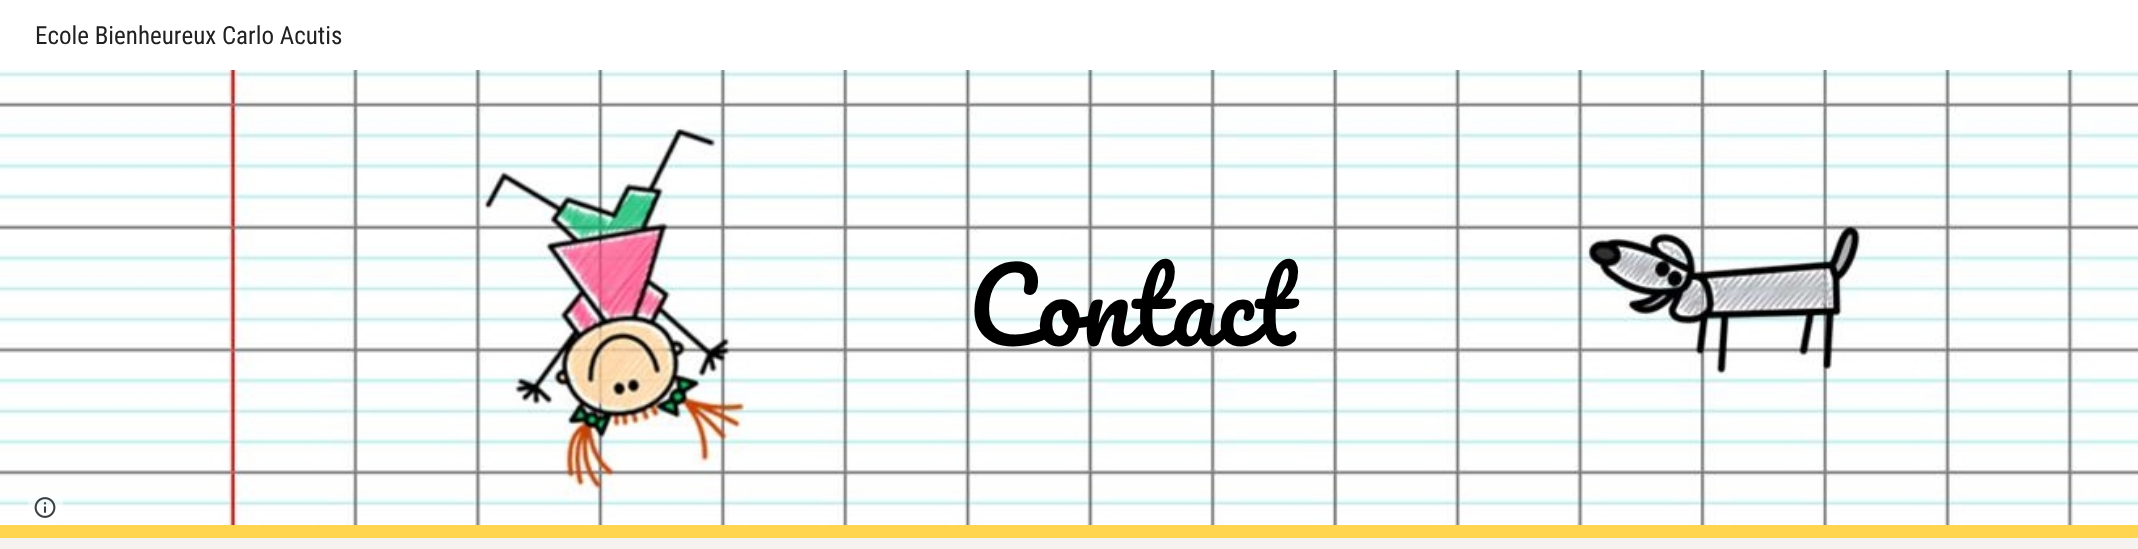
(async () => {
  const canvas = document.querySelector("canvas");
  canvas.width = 2138;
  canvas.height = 549;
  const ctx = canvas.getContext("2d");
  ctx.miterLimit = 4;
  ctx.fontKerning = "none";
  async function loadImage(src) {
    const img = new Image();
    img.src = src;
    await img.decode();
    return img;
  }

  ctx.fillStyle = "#f5f2f0";
  ctx.fillRect(0, 0, 2138, 549);
  ctx.fillStyle = "#ffffff";
  ctx.fillRect(0, 0, 2138, 70);
  ctx.drawImage(await loadImage("img/1.png"), 0, 70, 2138, 455);
  ctx.fillStyle = "#ffd54f";
  ctx.fillRect(0, 525, 2138, 13);
  ctx.fillStyle = "rgba(255, 255, 255, 0.5)";
  ctx.beginPath();
  ctx.roundRect(28, 490, 35, 35, 13);
  ctx.fill();
  ctx.drawImage(await loadImage("img/2.png"), 34, 497, 22, 21);
  ctx.font = "25px Roboto Condensed";
  ctx.fillStyle = "#212121";
  ctx.fillText("Ecole Bienheureux Carlo Acutis", 35, 44);
  ctx.font = "100px Pacifico";
  ctx.fillStyle = "#000000";
  ctx.fillText("Contact", 968, 346);
})();
